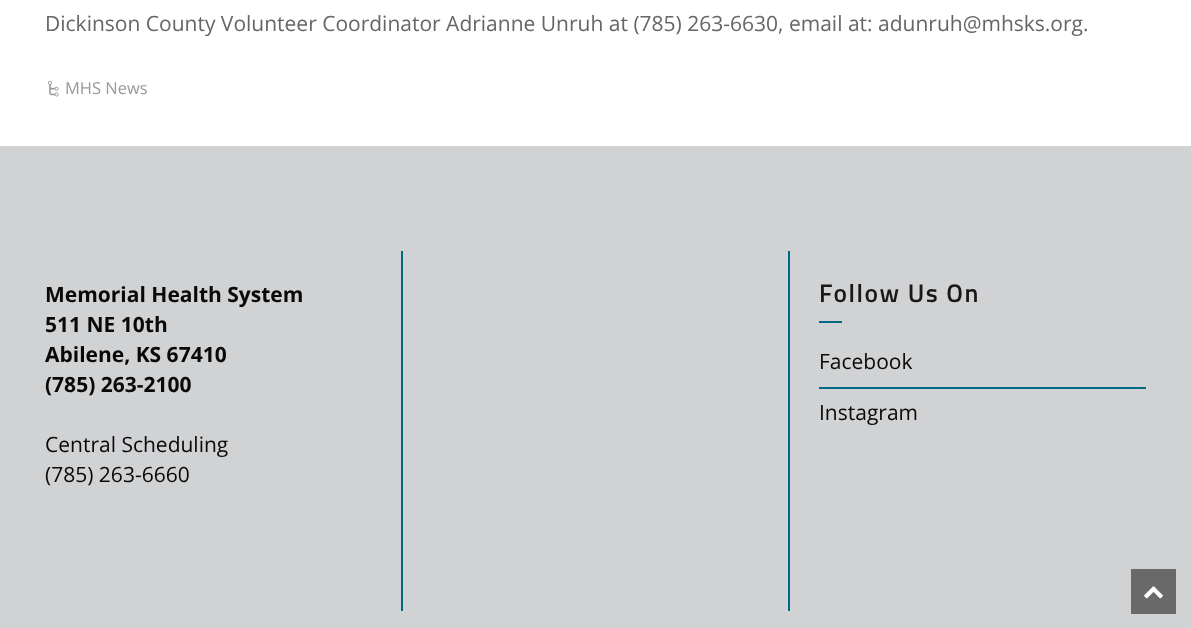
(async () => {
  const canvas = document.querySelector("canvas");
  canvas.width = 1191;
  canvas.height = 628;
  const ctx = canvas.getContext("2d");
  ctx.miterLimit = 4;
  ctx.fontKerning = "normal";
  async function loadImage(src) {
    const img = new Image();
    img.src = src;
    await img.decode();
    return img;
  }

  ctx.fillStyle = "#d1d2d4";
  ctx.fillRect(0, 0, 1191, 628);
  ctx.fillStyle = "#ffffff";
  ctx.fillRect(0, 0, 1191, 146);
  ctx.drawImage(await loadImage("img/1.png"), 48, 81, 11, 16);
  for (const [x, y, w, h, color] of [
    [401, 251, 2, 360, "#006a84"],
    [788, 251, 2, 360, "#006a84"],
    [819, 321, 23, 2, "#006a84"],
    [819, 387, 327, 2, "#006a84"],
    [1131, 569, 45, 45, "#69696a"],
  ]) {
    ctx.fillStyle = color;
    ctx.fillRect(x, y, w, h);
  }
  ctx.drawImage(await loadImage("img/2.png"), 1144, 586, 19, 13);
  ctx.font = "21px Open Sans";
  ctx.fillStyle = "#666666";
  ctx.fillText("Dickinson County Volunteer Coordinator Adrianne Unruh at (785) 263-6630, email at: adunruh@mhsks.org.", 45, 31);
  ctx.font = "16.5px Open Sans";
  ctx.fillStyle = "#999999";
  ctx.fillText("MHS News", 65, 94);
  ctx.font = "bold 21px Open Sans";
  ctx.fillStyle = "#090909";
  for (const [text, x, y] of [
    ["Memorial Health System", 45, 302],
    ["511 NE 10th", 45, 332],
    ["Abilene, KS 67410", 45, 362],
    ["(785) 263-2100", 45, 392],
  ]) {
    ctx.fillText(text, x, y);
  }
  ctx.font = "21px Open Sans";
  ctx.fillText("Central Scheduling", 45, 452);
  ctx.fillText("(785) 263-6660", 45, 482);
  ctx.letterSpacing = "1.5px";
  ctx.font = "600 25.5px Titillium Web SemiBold";
  ctx.fillStyle = "#191717";
  ctx.fillText("Follow Us On", 819, 302);
  ctx.letterSpacing = "0px";
  ctx.font = "21px Open Sans";
  ctx.fillStyle = "#090909";
  ctx.fillText("Facebook", 819, 369);
  ctx.fillText("Instagram", 819, 420);
})();
